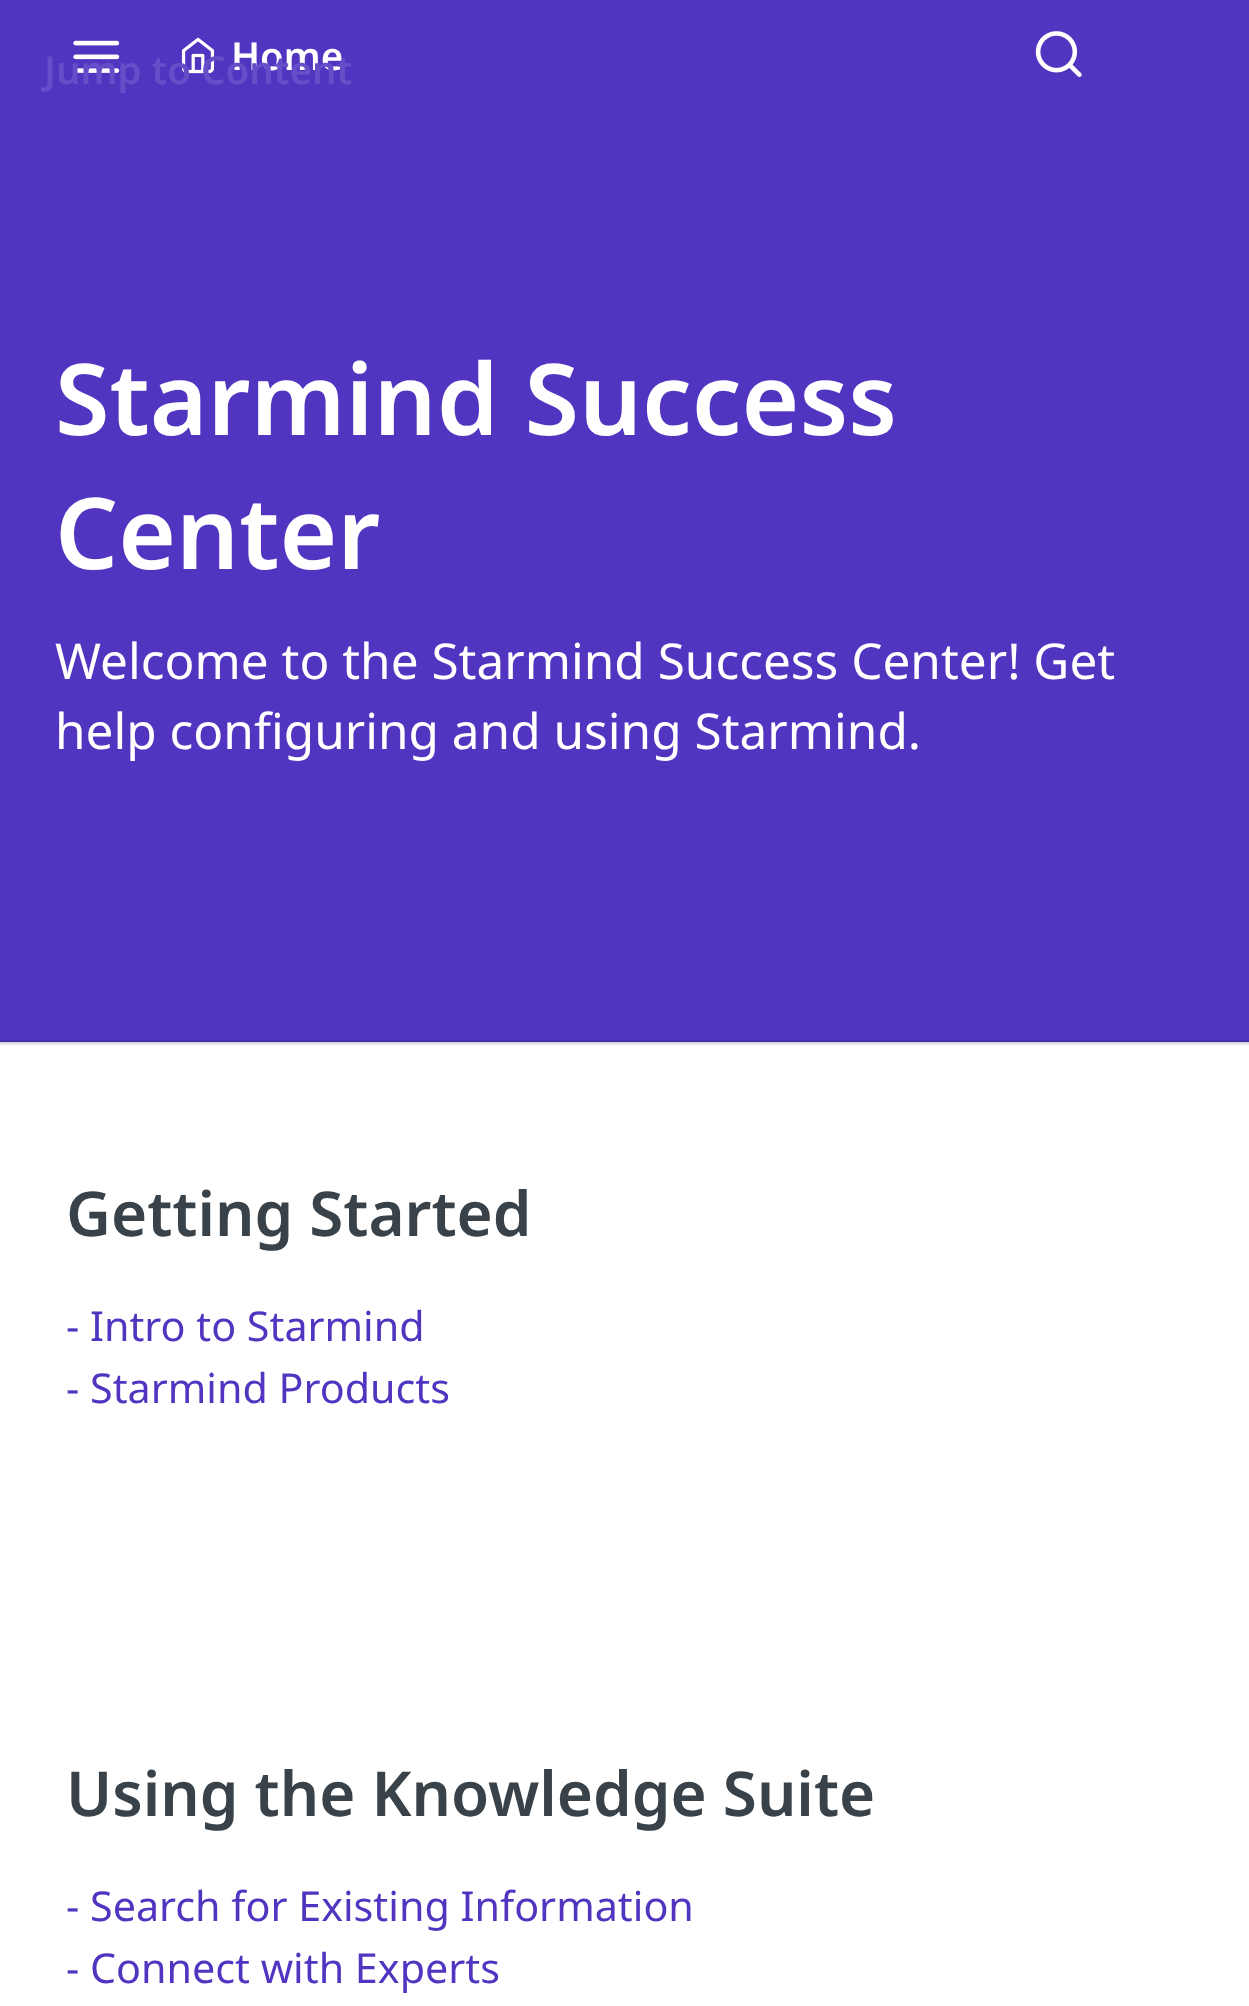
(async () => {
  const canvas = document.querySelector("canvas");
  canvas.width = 1249;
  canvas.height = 2006;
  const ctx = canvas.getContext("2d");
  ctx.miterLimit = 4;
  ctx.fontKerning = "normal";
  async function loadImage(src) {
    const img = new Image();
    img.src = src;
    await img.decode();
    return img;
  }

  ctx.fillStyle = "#ffffff";
  ctx.fillRect(0, 0, 1249, 2006);
  for (const [x, y, w, h, color] of [
    [0, 1043, 1249, 2, "#e6e6e6"],
    [0, 1042, 1249, 1, "#cfcfcf"],
    [0, 0, 1249, 1040, "#5135c1"],
    [0, 1040, 1249, 2, "#4930ae"],
  ]) {
    ctx.fillStyle = color;
    ctx.fillRect(x, y, w, h);
  }
  ctx.drawImage(await loadImage("img/1.png"), 73, 40, 47, 33);
  ctx.drawImage(await loadImage("img/2.png"), 181, 37, 34, 37);
  ctx.drawImage(await loadImage("img/3.png"), 1035, 31, 47, 46);
  ctx.font = "600 38.5px Noto Sans";
  ctx.fillStyle = "#ffffff";
  ctx.fillText("Home", 231, 70);
  ctx.fillStyle = "#664ec9";
  ctx.fillText("Jump to Content", 44, 84);
  ctx.font = "600 99px Noto Sans";
  ctx.fillStyle = "#ffffff";
  ctx.fillText("Starmind Success", 55, 435);
  ctx.fillText("Center", 55, 569);
  ctx.font = "49.5px Noto Sans";
  ctx.fillText("Welcome to the Starmind Success Center! Get", 55, 679);
  ctx.fillText("help configuring and using Starmind.", 55, 749);
  ctx.font = "600 61.9px Noto Sans";
  ctx.fillStyle = "#384248";
  ctx.fillText("Getting Started", 66, 1236);
  ctx.font = "41.25px Noto Sans";
  ctx.fillStyle = "#5135c1";
  ctx.fillText("- Intro to Starmind", 66, 1341);
  ctx.fillText("- Starmind Products", 66, 1403);
  ctx.font = "600 61.9px Noto Sans";
  ctx.fillStyle = "#384248";
  ctx.fillText("Using the Knowledge Suite", 66, 1816);
  ctx.font = "41.25px Noto Sans";
  ctx.fillStyle = "#5135c1";
  ctx.fillText("- Search for Existing Information", 66, 1921);
  ctx.fillText("- Connect with Experts", 66, 1983);
})();
